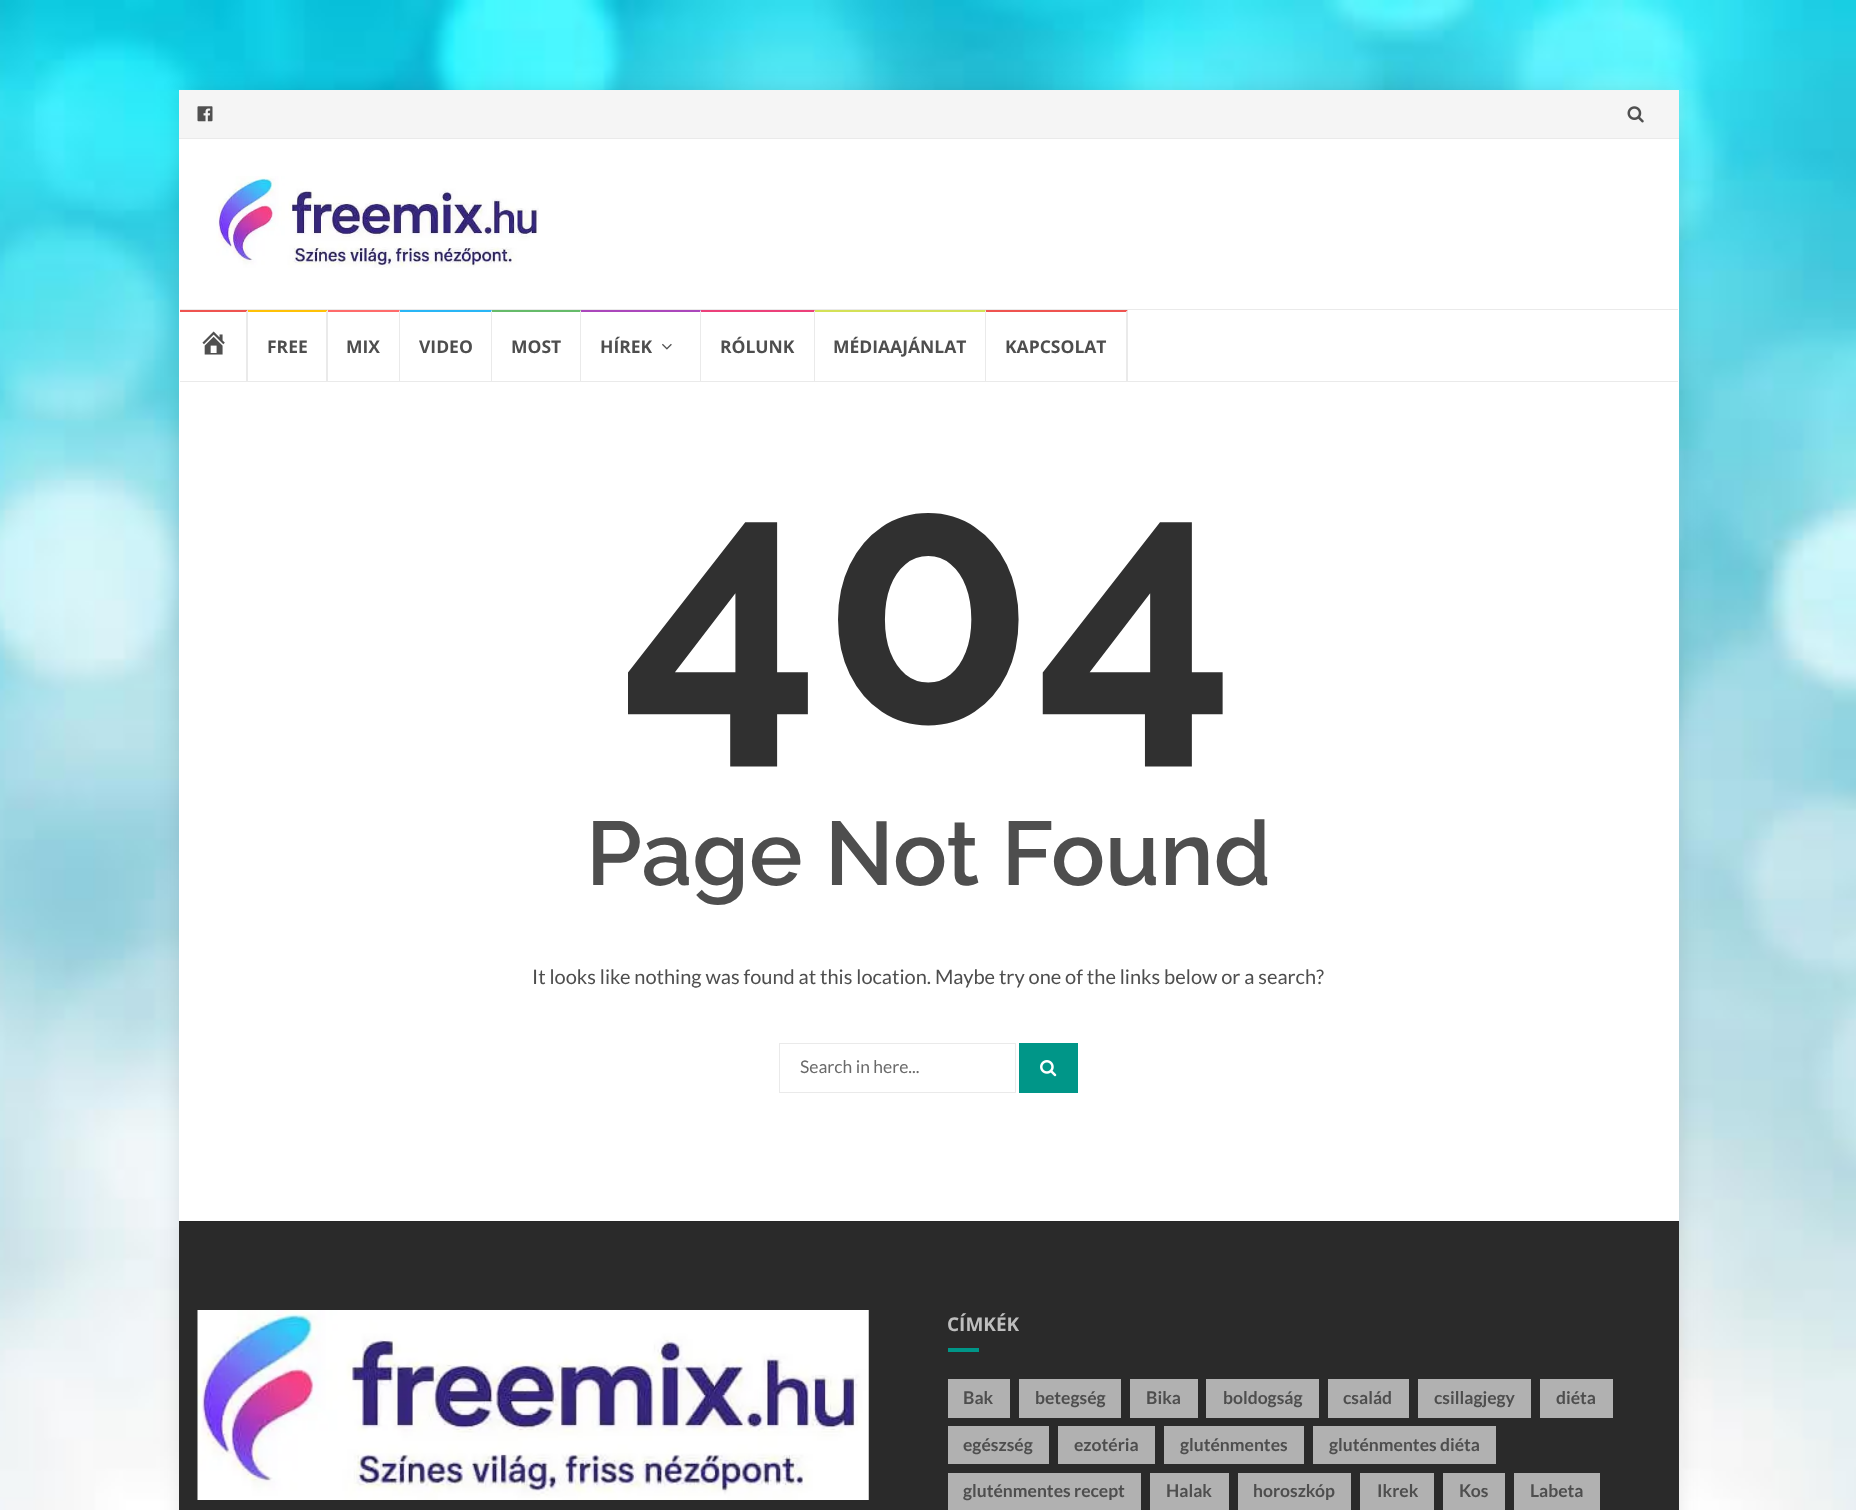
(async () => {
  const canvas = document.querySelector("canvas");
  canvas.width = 1856;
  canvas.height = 1510;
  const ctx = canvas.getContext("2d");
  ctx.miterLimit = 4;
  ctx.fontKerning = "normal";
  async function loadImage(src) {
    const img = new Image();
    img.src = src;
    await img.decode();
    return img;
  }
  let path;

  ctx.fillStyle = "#ffffff";
  ctx.fillRect(0, 0, 1856, 1510);
  ctx.drawImage(await loadImage("img/1.png"), 0, 0, 1856, 1510);
  ctx.fillStyle = "rgba(0, 0, 0, 0.1)";
  ctx.filter = "blur(9.5px)";
  ctx.beginPath();
  ctx.rect(179, 90, 1500, 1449);
  ctx.fill();
  ctx.filter = "none";
  for (const [x, y, w, h, color] of [
    [179, 139, 1500, 1082, "#ffffff"],
    [179, 90, 1500, 48, "#f5f5f5"],
    [179, 138, 1500, 1, "#eaeaea"],
  ]) {
    ctx.fillStyle = color;
    ctx.fillRect(x, y, w, h);
  }
  ctx.drawImage(await loadImage("img/2.png"), 197, 106, 16, 16);
  ctx.drawImage(await loadImage("img/3.png"), 1627, 106, 17, 17);
  ctx.drawImage(await loadImage("img/4.png"), 216, 176, 323, 92);
  ctx.fillRect(180, 309, 1498, 1);
  ctx.fillRect(180, 381, 1498, 1);
  ctx.fillStyle = "#ef5350";
  path = new Path2D("M180 310H248L246 312H180Z");
  ctx.fill(path);
  ctx.fillStyle = "#eaeaea";
  path = new Path2D("M248 310V381H246V312Z");
  ctx.fill(path);
  ctx.drawImage(await loadImage("img/5.png"), 202, 331, 23, 24);
  ctx.fillStyle = "#ffc107";
  path = new Path2D("M248 310H328L326 312H248Z");
  ctx.fill(path);
  ctx.fillStyle = "#eaeaea";
  path = new Path2D("M328 310V381H326V312Z");
  ctx.fill(path);
  ctx.fillStyle = "#ff6b6b";
  path = new Path2D("M328 310H400L399 312H328Z");
  ctx.fill(path);
  ctx.fillStyle = "#eaeaea";
  path = new Path2D("M400 310V381H399V312Z");
  ctx.fill(path);
  ctx.fillStyle = "#29b6f6";
  path = new Path2D("M400 310H492L491 312H400Z");
  ctx.fill(path);
  ctx.fillStyle = "#eaeaea";
  path = new Path2D("M492 310V381H491V312Z");
  ctx.fill(path);
  ctx.fillStyle = "#66bb6a";
  path = new Path2D("M492 310H581L580 312H492Z");
  ctx.fill(path);
  ctx.fillStyle = "#eaeaea";
  path = new Path2D("M581 310V381H580V312Z");
  ctx.fill(path);
  ctx.fillStyle = "#ab47bc";
  path = new Path2D("M581 310H701L700 312H581Z");
  ctx.fill(path);
  ctx.fillStyle = "#eaeaea";
  path = new Path2D("M701 310V381H700V312Z");
  ctx.fill(path);
  ctx.drawImage(await loadImage("img/6.png"), 662, 343, 10, 7);
  ctx.fillStyle = "#ec407a";
  path = new Path2D("M701 310H815L814 312H701Z");
  ctx.fill(path);
  ctx.fillStyle = "#eaeaea";
  path = new Path2D("M815 310V381H814V312Z");
  ctx.fill(path);
  ctx.fillStyle = "#d4e157";
  path = new Path2D("M815 310H986L985 312H815Z");
  ctx.fill(path);
  ctx.fillStyle = "#eaeaea";
  path = new Path2D("M986 310V381H985V312Z");
  ctx.fill(path);
  ctx.fillStyle = "#ef5350";
  path = new Path2D("M986 310H1128L1126 312H986Z");
  ctx.fill(path);
  ctx.fillStyle = "#eaeaea";
  path = new Path2D("M1128 310V381H1126V312Z");
  ctx.fill(path);
  ctx.strokeStyle = "#eaeaea";
  ctx.strokeRect(779.5, 1043.5, 236, 49);
  ctx.fillStyle = "#009688";
  ctx.fillRect(1019, 1043, 59, 50);
  ctx.drawImage(await loadImage("img/7.png"), 1040, 1060, 17, 17);
  ctx.fillStyle = "#2a2a2a";
  ctx.fillRect(179, 1222, 1500, 288);
  ctx.fillStyle = "#262626";
  ctx.fillRect(179, 1221, 1500, 1);
  ctx.drawImage(await loadImage("img/8.png"), 197, 1310, 672, 190);
  for (const [x, y, w, h, color] of [
    [948, 1348, 31, 4, "#009688"],
    [948, 1379, 62, 39, "#b1b1b1"],
    [1019, 1379, 102, 39, "#b1b1b1"],
    [1130, 1379, 68, 39, "#b1b1b1"],
    [1206, 1379, 113, 39, "#b1b1b1"],
    [1328, 1379, 81, 39, "#b1b1b1"],
    [1418, 1379, 113, 39, "#b1b1b1"],
    [1540, 1379, 73, 39, "#b1b1b1"],
    [948, 1426, 101, 38, "#b1b1b1"],
    [1058, 1426, 97, 38, "#b1b1b1"],
    [1164, 1426, 140, 38, "#b1b1b1"],
    [1313, 1426, 183, 38, "#b1b1b1"],
    [948, 1473, 193, 37, "#b1b1b1"],
    [1150, 1473, 79, 37, "#b1b1b1"],
    [1238, 1473, 113, 37, "#b1b1b1"],
    [1360, 1473, 74, 37, "#b1b1b1"],
    [1443, 1473, 62, 37, "#b1b1b1"],
    [1514, 1473, 86, 37, "#b1b1b1"],
  ]) {
    ctx.fillStyle = color;
    ctx.fillRect(x, y, w, h);
  }
  ctx.font = "bold 17.5px Open Sans";
  ctx.fillStyle = "#4e4e4e";
  for (const [text, x, y] of [
    ["FREE", 267, 353],
    ["MIX", 346, 353],
    ["VIDEO", 419, 353],
    ["MOST", 511, 353],
    ["HÍREK", 600, 353],
    ["RÓLUNK", 720, 353],
    ["MÉDIAAJÁNLAT", 833, 353],
    ["KAPCSOLAT", 1005, 353],
  ]) {
    ctx.fillText(text, x, y);
  }
  ctx.font = "bold 350px Raleway";
  ctx.fillStyle = "#303030";
  ctx.fillText("404", 621, 722);
  ctx.font = "600 90px Raleway";
  ctx.fillStyle = "#4e4e4e";
  ctx.fillText("Page Not Found", 586, 885);
  ctx.font = "20px Lato";
  ctx.fillText("It looks like nothing was found at this location. Maybe try one of the links below or a search?", 532, 984);
  ctx.font = "17.5px Lato";
  ctx.fillStyle = "#6a6a6a";
  ctx.fillText("Search in here...", 800, 1073);
  ctx.font = "bold 19px Open Sans";
  ctx.fillStyle = "#bebebe";
  ctx.fillText("CÍMKÉK", 947, 1331);
  ctx.font = "bold 17.5px Lato";
  ctx.fillStyle = "#4e4e4e";
  for (const [text, x, y] of [
    ["Bak", 963, 1404],
    ["betegség", 1035, 1404],
    ["Bika", 1146, 1404],
    ["boldogság", 1223, 1404],
    ["család", 1343, 1404],
    ["csillagjegy", 1434, 1404],
    ["diéta", 1556, 1404],
    ["egészség", 963, 1451],
    ["ezotéria", 1074, 1451],
    ["gluténmentes", 1180, 1451],
    ["gluténmentes diéta", 1329, 1451],
    ["gluténmentes recept", 963, 1497],
    ["Halak", 1166, 1497],
    ["horoszkóp", 1253, 1497],
    ["Ikrek", 1377, 1497],
    ["Kos", 1459, 1497],
    ["Labeta", 1530, 1497],
  ]) {
    ctx.fillText(text, x, y);
  }
})();
